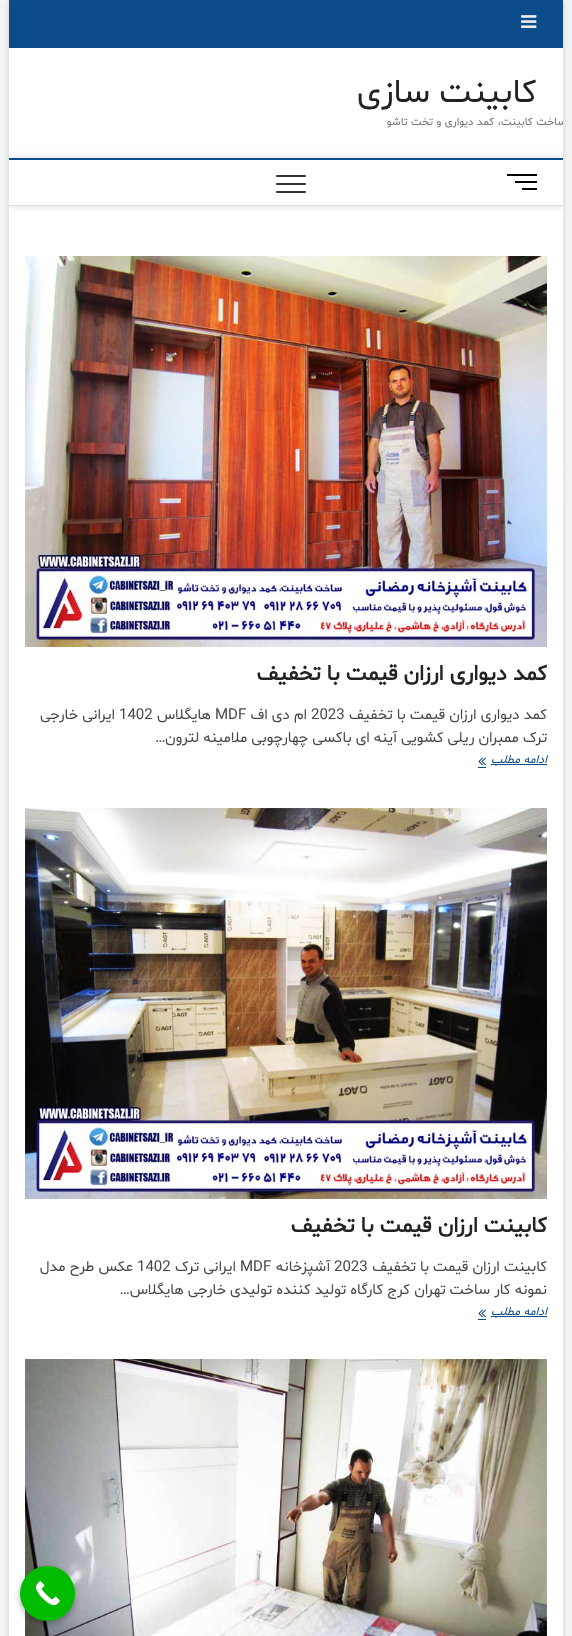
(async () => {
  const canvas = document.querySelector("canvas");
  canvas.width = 572;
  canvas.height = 1636;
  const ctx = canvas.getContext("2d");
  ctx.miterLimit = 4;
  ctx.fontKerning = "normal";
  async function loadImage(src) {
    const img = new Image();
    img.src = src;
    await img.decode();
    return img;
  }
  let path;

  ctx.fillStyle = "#f4f4f4";
  ctx.fillRect(0, 0, 572, 1636);
  ctx.fillStyle = "rgba(0, 0, 0, 0.15)";
  ctx.filter = "blur(3px)";
  ctx.beginPath();
  ctx.rect(9, 1, 554, 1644);
  ctx.fill();
  ctx.filter = "none";
  ctx.fillStyle = "#ffffff";
  ctx.fillRect(9, 48, 554, 1588);
  ctx.fillStyle = "#0c4c8a";
  ctx.fillRect(9, 0, 554, 48);
  ctx.drawImage(await loadImage("img/1.png"), 521, 15, 16, 13);
  ctx.save();
  ctx.beginPath();
  ctx.rect(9, 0, 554, 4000);
  ctx.clip();
  path = new Path2D("M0 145H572V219H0ZM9 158H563V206H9Z");
  ctx.clip(path, "evenodd");
  ctx.fillStyle = "rgba(0, 0, 0, 0.15)";
  ctx.filter = "blur(4px)";
  ctx.beginPath();
  ctx.rect(9, 158, 554, 48);
  ctx.fill();
  ctx.filter = "none";
  ctx.restore();
  for (const [x, y, w, h, color] of [
    [9, 158, 554, 2, "#0c4c8a"],
    [9, 205, 554, 1, "#dddddd"],
    [515, 181, 22, 2, "#000000"],
    [507, 174, 30, 2, "#000000"],
    [522, 188, 15, 2, "#000000"],
  ]) {
    ctx.fillStyle = color;
    ctx.fillRect(x, y, w, h);
  }
  ctx.fillStyle = "#333333";
  ctx.beginPath();
  ctx.roundRect(276, 183, 30, 2, 1);
  ctx.fill();
  ctx.beginPath();
  ctx.roundRect(276, 175, 30, 2, 1);
  ctx.fill();
  ctx.beginPath();
  ctx.roundRect(276, 191, 30, 2, 1);
  ctx.fill();
  ctx.drawImage(await loadImage("img/2.png"), 25, 256, 522, 391);
  ctx.fillStyle = "#0c4c8a";
  ctx.fillRect(491, 764, 56, 1);
  ctx.drawImage(await loadImage("img/3.png"), 478, 757, 8, 9);
  ctx.fillRect(478, 767, 8, 1);
  ctx.drawImage(await loadImage("img/4.png"), 25, 808, 522, 391);
  ctx.fillRect(491, 1316, 56, 1);
  ctx.drawImage(await loadImage("img/3.png"), 478, 1309, 8, 9);
  ctx.fillRect(478, 1319, 8, 1);
  ctx.drawImage(await loadImage("img/5.png"), 25, 1359, 522, 277);
  ctx.fillStyle = "rgba(0, 0, 0, 0.3)";
  ctx.filter = "blur(3px)";
  ctx.beginPath();
  ctx.roundRect(20, 1569, 55, 55, 27.5);
  ctx.fill();
  ctx.filter = "none";
  ctx.fillStyle = "#00bb00";
  ctx.beginPath();
  ctx.arc(47.5, 1593.5, 27.5, 0, Math.PI * 2);
  ctx.fill();
  ctx.drawImage(await loadImage("img/6.png"), 35, 1581, 25, 25);
  ctx.direction = "rtl";
  ctx.font = "34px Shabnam";
  ctx.fillStyle = "#222222";
  ctx.fillText("کابینت سازی", 537, 102);
  ctx.save();
  ctx.beginPath();
  ctx.rect(9, 0, 554, 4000);
  ctx.clip();
  ctx.letterSpacing = "1.1px";
  ctx.wordSpacing = "-0.5px";
  ctx.font = "11px Shabnam";
  ctx.fillStyle = "#747474";
  ctx.fillText("ساخت کابینت، کمد دیواری و تخت تاشو", 566, 125);
  ctx.restore();
  ctx.font = "bold 22px Shabnam";
  ctx.fillText("کمد دیواری ارزان قیمت با تخفیف", 547, 680);
  ctx.font = "15px Shabnam";
  ctx.fillStyle = "#484848";
  ctx.fillText("کمد دیواری ارزان قیمت با تخفیف", 547, 719);
  ctx.direction = "ltr";
  ctx.fillText("2023", 311, 719);
  ctx.direction = "rtl";
  ctx.fillText("ام دی اف", 307, 719);
  ctx.direction = "ltr";
  ctx.fillText("MDF", 215, 719);
  ctx.direction = "rtl";
  ctx.fillText("هایگلاس", 211, 719);
  ctx.direction = "ltr";
  ctx.fillText("1402", 119, 719);
  ctx.direction = "rtl";
  ctx.fillText("ایرانی خارجی", 115, 719);
  ctx.fillText("ترک ممبران ریلی کشویی آینه ای باکسی چهارچوبی ملامینه لترون…", 547, 742);
  ctx.font = "italic 12px Shabnam";
  ctx.fillStyle = "#0c4c8a";
  ctx.fillText("ادامه مطلب", 547, 763);
  ctx.font = "bold 22px Shabnam";
  ctx.fillStyle = "#222222";
  ctx.fillText("کابینت ارزان قیمت با تخفیف", 547, 1232);
  ctx.font = "15px Shabnam";
  ctx.fillStyle = "#484848";
  ctx.fillText("کابینت ارزان قیمت با تخفیف", 547, 1271);
  ctx.direction = "ltr";
  ctx.fillText("2023", 334, 1271);
  ctx.direction = "rtl";
  ctx.fillText("آشپزخانه", 330, 1271);
  ctx.direction = "ltr";
  ctx.fillText("MDF", 240, 1271);
  ctx.direction = "rtl";
  ctx.fillText("ایرانی ترک", 236, 1271);
  ctx.direction = "ltr";
  ctx.fillText("1402", 137, 1271);
  ctx.direction = "rtl";
  ctx.fillText("عکس طرح مدل", 133, 1271);
  ctx.fillText("نمونه کار ساخت تهران کرج کارگاه تولید کننده تولیدی خارجی هایگلاس…", 547, 1294);
  ctx.font = "italic 12px Shabnam";
  ctx.fillStyle = "#0c4c8a";
  ctx.fillText("ادامه مطلب", 547, 1315);
})();
